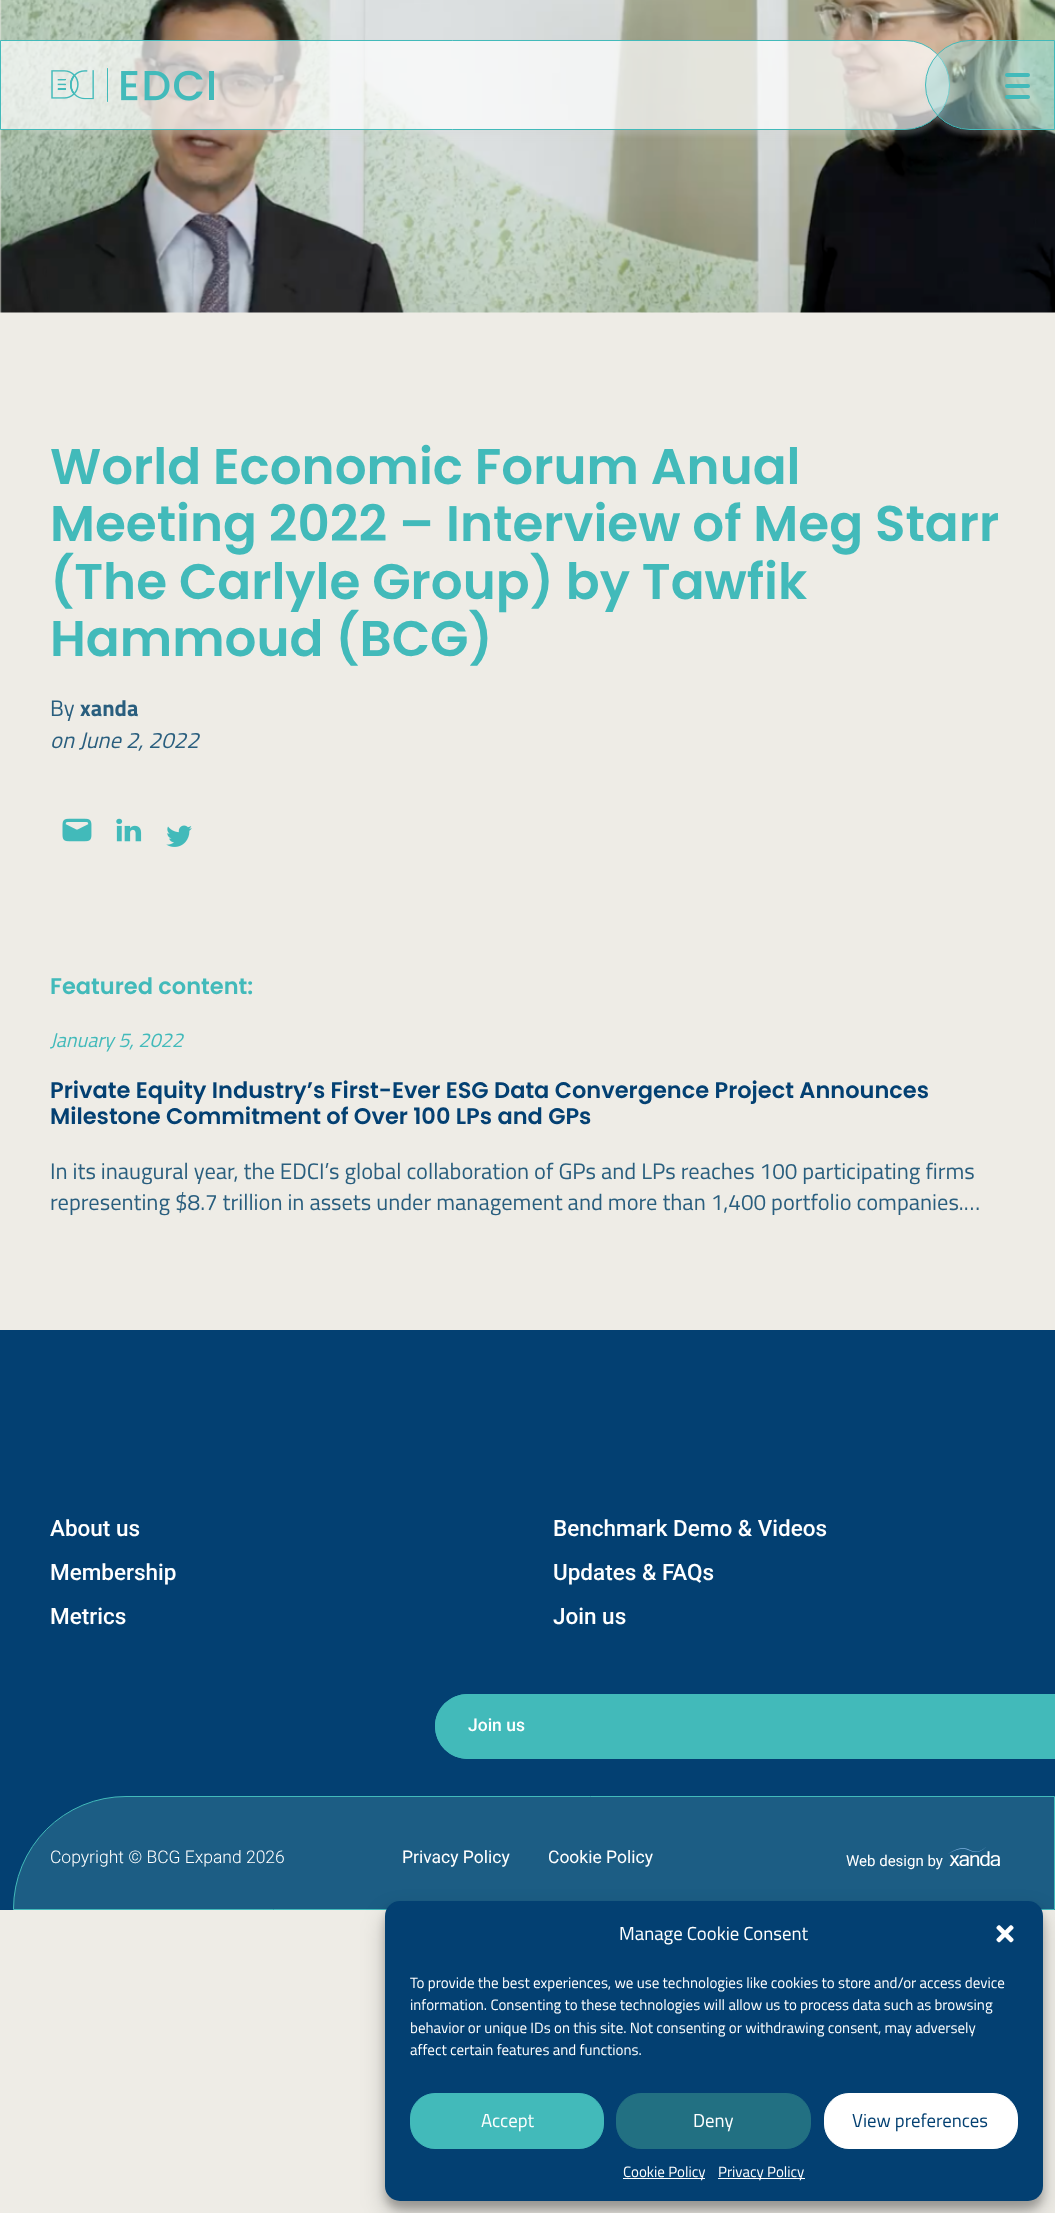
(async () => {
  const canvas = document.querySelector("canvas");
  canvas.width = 1055;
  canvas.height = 2213;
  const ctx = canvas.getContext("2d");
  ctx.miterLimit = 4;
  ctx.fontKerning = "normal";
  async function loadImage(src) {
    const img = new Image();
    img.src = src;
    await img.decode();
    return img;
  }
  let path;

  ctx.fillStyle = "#eeece6";
  ctx.fillRect(0, 0, 1055, 2213);
  ctx.drawImage(await loadImage("img/1.png"), 0, 0, 1055, 313);
  ctx.save();
  path = new Path2D("M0 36H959V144H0ZM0 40H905C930 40 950 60 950 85C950 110 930 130 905 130H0Z");
  ctx.clip(path, "evenodd");
  ctx.fillStyle = "rgba(215, 215, 215, 0.25)";
  ctx.filter = "blur(2.5px)";
  ctx.beginPath();
  ctx.roundRect(0, 45, 950, 90, 45);
  ctx.fill();
  ctx.filter = "none";
  ctx.restore();
  ctx.fillStyle = "rgba(255, 255, 255, 0.7)";
  ctx.beginPath();
  ctx.roundRect(0.5, 40.5, 949, 89, [0, 44.5, 44.5, 0]);
  ctx.fill();
  ctx.strokeStyle = "#42baba";
  ctx.stroke();
  ctx.drawImage(await loadImage("img/2.png"), 51, 68, 163, 34);
  ctx.save();
  path = new Path2D("M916 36H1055V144H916ZM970 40H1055V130H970C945 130 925 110 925 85C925 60 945 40 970 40Z");
  ctx.clip(path, "evenodd");
  ctx.fillStyle = "rgba(215, 215, 215, 0.25)";
  ctx.filter = "blur(2.5px)";
  ctx.beginPath();
  ctx.roundRect(925, 45, 130, 90, 45);
  ctx.fill();
  ctx.filter = "none";
  ctx.restore();
  ctx.fillStyle = "rgba(164, 224, 224, 0.51)";
  ctx.beginPath();
  ctx.roundRect(925.5, 40.5, 129, 89, [44.5, 0, 0, 44.5]);
  ctx.fill();
  ctx.stroke();
  ctx.fillStyle = "#42baba";
  ctx.beginPath();
  ctx.roundRect(1005, 73, 25, 4, 2);
  ctx.fill();
  ctx.beginPath();
  ctx.roundRect(1005, 84, 25, 4, 2);
  ctx.fill();
  ctx.beginPath();
  ctx.roundRect(1005, 95, 25, 4, 2);
  ctx.fill();
  ctx.drawImage(await loadImage("img/3.png"), 62, 818, 30, 24);
  ctx.drawImage(await loadImage("img/4.png"), 116, 818, 26, 24);
  ctx.drawImage(await loadImage("img/5.png"), 166, 825, 26, 22);
  ctx.fillStyle = "#034072";
  ctx.fillRect(0, 1330, 1055, 580);
  ctx.fillStyle = "#42baba";
  ctx.beginPath();
  ctx.roundRect(435, 1694, 620, 65, [32.5, 0, 0, 32.5]);
  ctx.fill();
  path = new Path2D("M468 1694H1055V1759H468C450 1759 435 1744 435 1726C435 1708 450 1694 468 1694ZM468 1695H1055V1758H468C450 1758 436 1744 436 1726C436 1709 450 1695 468 1695Z");
  ctx.fill(path, "evenodd");
  ctx.fillStyle = "#1c5d84";
  ctx.beginPath();
  ctx.roundRect(13.5, 1796.5, 1041, 113, [112.5, 0, 0, 0]);
  ctx.fill();
  ctx.stroke();
  ctx.drawImage(await loadImage("img/6.png"), 948, 1847, 52, 19);
  ctx.fillStyle = "rgba(0, 0, 0, 0.23)";
  ctx.filter = "blur(4px)";
  ctx.beginPath();
  ctx.roundRect(385, 1909, 658, 300, 15);
  ctx.fill();
  ctx.filter = "none";
  ctx.fillStyle = "rgba(0, 0, 0, 0.19)";
  ctx.filter = "blur(12.5px)";
  ctx.beginPath();
  ctx.roundRect(385, 1914, 658, 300, 15);
  ctx.fill();
  ctx.filter = "none";
  ctx.fillStyle = "#034072";
  ctx.beginPath();
  ctx.roundRect(385, 1901, 658, 300, 15);
  ctx.fill();
  ctx.drawImage(await loadImage("img/7.png"), 996, 1925, 18, 18);
  ctx.fillStyle = "#42baba";
  ctx.beginPath();
  ctx.roundRect(410.5, 2093.5, 193, 55, 24.5);
  ctx.fill();
  ctx.stroke();
  ctx.fillStyle = "#227082";
  ctx.beginPath();
  ctx.roundRect(616.5, 2093.5, 194, 55, 24.5);
  ctx.fill();
  ctx.strokeStyle = "#227082";
  ctx.stroke();
  ctx.fillStyle = "#ffffff";
  ctx.beginPath();
  ctx.roundRect(824.5, 2093.5, 193, 55, 24.5);
  ctx.fill();
  ctx.strokeStyle = "#ffffff";
  ctx.stroke();
  ctx.fillRect(623, 2178, 82, 1);
  ctx.fillRect(718, 2178, 87, 1);
  ctx.font = "600 50px Poppins";
  ctx.fillStyle = "#42baba";
  for (const [text, x, y] of [
    ["World Economic Forum Anual", 50, 484],
    ["Meeting 2022 – Interview of Meg Starr", 50, 541],
    ["(The Carlyle Group) by Tawfik", 50, 599],
    ["Hammoud (BCG)", 50, 656],
  ]) {
    ctx.fillText(text, x, y);
  }
  ctx.font = "22.5px Titillium Web";
  ctx.fillStyle = "#295e7e";
  ctx.fillText("By", 50, 716);
  ctx.font = "bold 22.5px Titillium Web";
  ctx.fillText("xanda", 80, 716);
  ctx.font = "italic 22.5px Titillium Web";
  ctx.fillText("on June 2, 2022", 50, 748);
  ctx.font = "600 22.5px Poppins";
  ctx.fillStyle = "#42baba";
  ctx.fillText("Featured content:", 50, 994);
  ctx.font = "italic 20px Titillium Web";
  ctx.fillText("January 5, 2022", 50, 1047);
  ctx.font = "600 22.5px Poppins";
  ctx.fillStyle = "#034072";
  ctx.fillText("Private Equity Industry’s First-Ever ESG Data Convergence Project Announces", 50, 1098);
  ctx.fillText("Milestone Commitment of Over 100 LPs and GPs", 50, 1124);
  ctx.font = "22.5px Titillium Web";
  ctx.fillStyle = "#295e7e";
  ctx.fillText("In its inaugural year, the EDCI’s global collaboration of GPs and LPs reaches 100 participating firms", 50, 1179);
  ctx.fillText("representing $8.7 trillion in assets under management and more than 1,400 portfolio companies.…", 50, 1210);
  ctx.font = "500 22.5px Roboto";
  ctx.fillStyle = "#ffffff";
  for (const [text, x, y] of [
    ["About us", 50, 1536],
    ["Membership", 50, 1580],
    ["Metrics", 50, 1624],
    ["Benchmark Demo & Videos", 553, 1536],
    ["Updates & FAQs", 553, 1580],
    ["Join us", 553, 1624],
  ]) {
    ctx.fillText(text, x, y);
  }
  ctx.font = "500 17.5px Roboto";
  ctx.fillText("Join us", 468, 1731);
  ctx.font = "300 17.5px Roboto";
  ctx.fillText("Copyright © BCG Expand 2026", 50, 1863);
  ctx.font = "17.5px Roboto";
  ctx.fillText("Privacy Policy", 402, 1863);
  ctx.fillText("Cookie Policy", 548, 1863);
  ctx.font = "15px Roboto";
  ctx.fillText("Web design by", 846, 1866);
  ctx.font = "18.75px Titillium Web";
  ctx.fillText("Manage Cookie Consent", 619, 1940);
  ctx.font = "15px Titillium Web";
  for (const [text, x, y] of [
    ["To provide the best experiences, we use technologies like cookies to store and/or access device", 410, 1988],
    ["information. Consenting to these technologies will allow us to process data such as browsing", 410, 2010],
    ["behavior or unique IDs on this site. Not consenting or withdrawing consent, may adversely", 410, 2033],
    ["affect certain features and functions.", 410, 2055],
  ]) {
    ctx.fillText(text, x, y);
  }
  ctx.font = "18.75px Titillium Web";
  ctx.fillText("Accept", 481, 2127);
  ctx.fillText("Deny", 693, 2127);
  ctx.fillStyle = "#034072";
  ctx.fillText("View preferences", 852, 2127);
  ctx.font = "15px Titillium Web";
  ctx.fillStyle = "#ffffff";
  ctx.fillText("Cookie Policy", 623, 2177);
  ctx.fillText("Privacy Policy", 718, 2177);
})();
